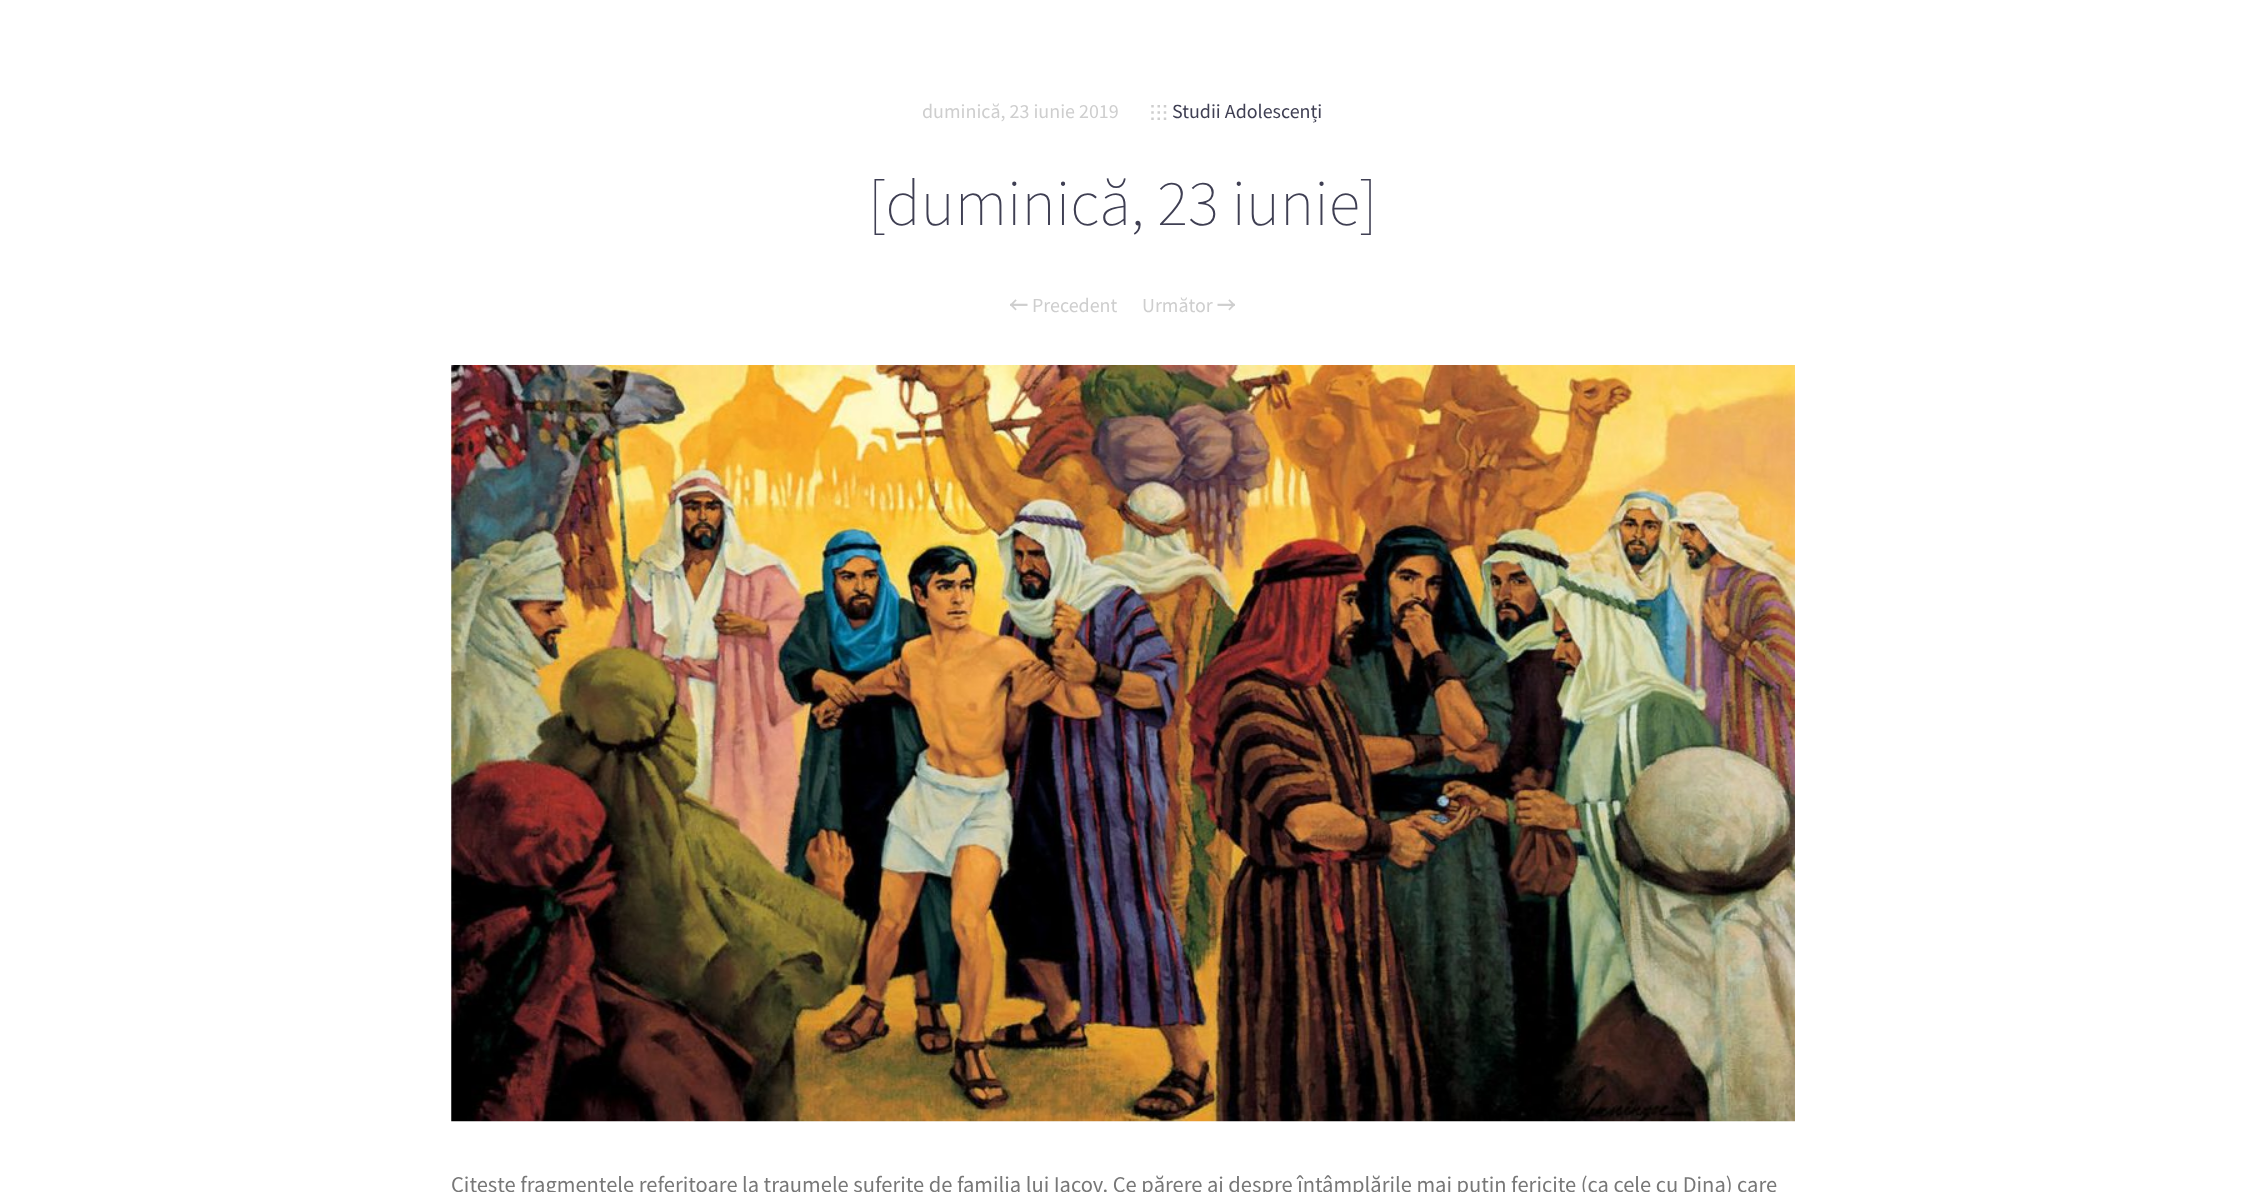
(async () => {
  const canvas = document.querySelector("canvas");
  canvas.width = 2245;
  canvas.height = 1192;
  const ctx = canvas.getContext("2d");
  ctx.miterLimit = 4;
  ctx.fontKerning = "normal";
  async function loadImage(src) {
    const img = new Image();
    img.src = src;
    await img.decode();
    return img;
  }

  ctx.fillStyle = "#ffffff";
  ctx.fillRect(0, 0, 2245, 1192);
  ctx.drawImage(await loadImage("img/1.png"), 1151, 105, 16, 15);
  ctx.drawImage(await loadImage("img/2.png"), 1010, 299, 18, 12);
  ctx.drawImage(await loadImage("img/3.png"), 1217, 299, 18, 12);
  ctx.drawImage(await loadImage("img/4.png"), 451, 365, 1344, 757);
  ctx.font = "20px Source Sans Pro";
  ctx.fillStyle = "#cecece";
  ctx.fillText("duminică, 23 iunie 2019", 922, 118);
  ctx.fillStyle = "#3f3f53";
  ctx.fillText("Studii Adolescenți", 1172, 118);
  ctx.font = "200 65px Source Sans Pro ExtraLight";
  ctx.fillText("[duminică, 23 iunie]", 868, 225);
  ctx.font = "20px Source Sans Pro";
  ctx.fillStyle = "#cecece";
  ctx.fillText("Precedent", 1032, 312);
  ctx.fillText("Următor", 1142, 312);
  ctx.font = "22.5px Source Sans Pro";
  ctx.fillStyle = "#777777";
  ctx.fillText("Citește fragmentele referitoare la traumele suferite de familia lui Iacov. Ce părere ai despre întâmplările mai puțin fericite (ca cele cu Dina) care", 451, 1192);
})();
